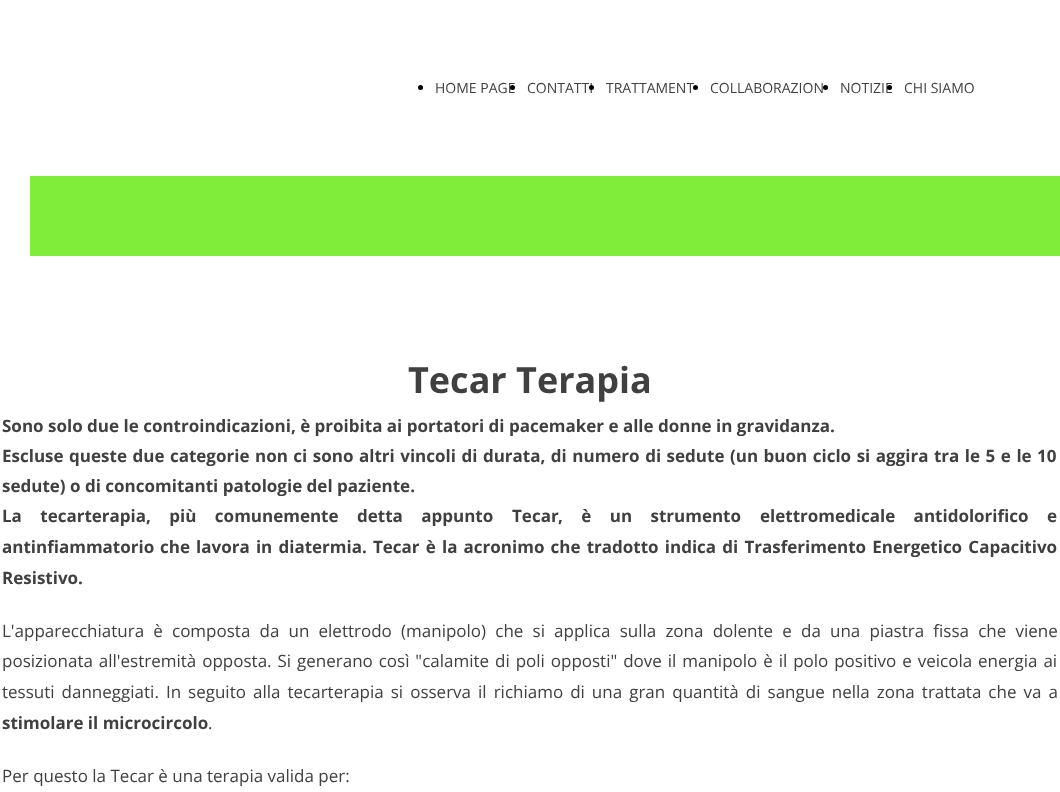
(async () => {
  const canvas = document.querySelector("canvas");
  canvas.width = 1060;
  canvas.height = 792;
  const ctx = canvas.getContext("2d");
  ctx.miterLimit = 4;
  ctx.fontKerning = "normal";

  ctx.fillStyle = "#ffffff";
  ctx.fillRect(0, 0, 1060, 792);
  ctx.fillStyle = "#000000";
  ctx.beginPath();
  ctx.arc(420.5, 87.5, 2.5, 0, Math.PI * 2);
  ctx.fill();
  ctx.beginPath();
  ctx.arc(825.5, 87.5, 2.5, 0, Math.PI * 2);
  ctx.fill();
  ctx.fillStyle = "#7fee3a";
  ctx.fillRect(30, 176, 1030, 80);
  ctx.font = "14px Open Sans";
  ctx.fillStyle = "#404040";
  ctx.fillText("HOME PAGE", 435, 93);
  ctx.fillStyle = "#000000";
  ctx.beginPath();
  ctx.arc(512.5, 87.5, 2.5, 0, Math.PI * 2);
  ctx.fill();
  ctx.fillStyle = "#404040";
  ctx.fillText("CONTATTI", 527, 93);
  ctx.fillStyle = "#000000";
  ctx.beginPath();
  ctx.arc(591.5, 87.5, 2.5, 0, Math.PI * 2);
  ctx.fill();
  ctx.fillStyle = "#404040";
  ctx.fillText("TRATTAMENT", 606, 93);
  ctx.fillStyle = "#000000";
  ctx.beginPath();
  ctx.arc(695.5, 87.5, 2.5, 0, Math.PI * 2);
  ctx.fill();
  ctx.fillStyle = "#404040";
  ctx.fillText("COLLABORAZION", 710, 93);
  ctx.fillText("NOTIZIE", 840, 93);
  ctx.fillStyle = "#000000";
  ctx.beginPath();
  ctx.arc(889.5, 87.5, 2.5, 0, Math.PI * 2);
  ctx.fill();
  ctx.fillStyle = "#404040";
  ctx.fillText("CHI SIAMO", 904, 93);
  ctx.font = "bold 36px Open Sans";
  ctx.fillText("Tecar Terapia", 408, 393);
  ctx.font = "bold 17px Open Sans";
  ctx.fillText("Sono solo due le controindicazioni, è proibita ai portatori di pacemaker e alle donne in gravidanza.", 2, 432);
  ctx.wordSpacing = "1.1px";
  ctx.fillText("Escluse queste due categorie non ci sono altri vincoli di durata, di numero di sedute (un buon ciclo si aggira tra le 5 e le 10", 2, 462);
  ctx.wordSpacing = "0px";
  ctx.fillText("sedute) o di concomitanti patologie del paziente.", 2, 492);
  ctx.wordSpacing = "14px";
  ctx.fillText("La tecarterapia, più comunemente detta appunto", 2, 522);
  ctx.wordSpacing = "0px";
  ctx.fillText("Tecar", 512, 522);
  ctx.wordSpacing = "14px";
  ctx.fillText(", è un strumento", 558, 522);
  ctx.fillText("elettromedicale antidolorifico e", 760, 522);
  ctx.wordSpacing = "0px";
  ctx.fillText("antinfiammatorio", 2, 553);
  ctx.wordSpacing = "1.75px";
  ctx.fillText("che lavora in diatermia. Tecar è la acronimo che tradotto indica di Trasferimento Energetico Capacitivo", 160, 553);
  ctx.wordSpacing = "0px";
  ctx.fillText("Resistivo.", 2, 584);
  ctx.wordSpacing = "4.75px";
  ctx.font = "17px Open Sans";
  ctx.fillText("L'apparecchiatura è composta da un elettrodo (manipolo) che si applica sulla zona dolente e da una piastra fissa che viene", 2, 637);
  ctx.wordSpacing = "1.5px";
  ctx.fillText("posizionata all'estremità opposta. Si generano così \"calamite di poli opposti\" dove il manipolo è il polo positivo e veicola energia ai", 2, 667);
  ctx.wordSpacing = "2.6px";
  ctx.fillText("tessuti danneggiati. In seguito alla tecarterapia si osserva il richiamo di una gran quantità di sangue nella zona trattata che va a", 2, 698);
  ctx.wordSpacing = "0px";
  ctx.font = "bold 17px Open Sans";
  ctx.fillText("stimolare il microcircolo", 2, 729);
  ctx.font = "17px Open Sans";
  ctx.fillText(".", 208, 729);
  ctx.fillText("Per questo la Tecar è una terapia valida per:", 2, 782);
})();
